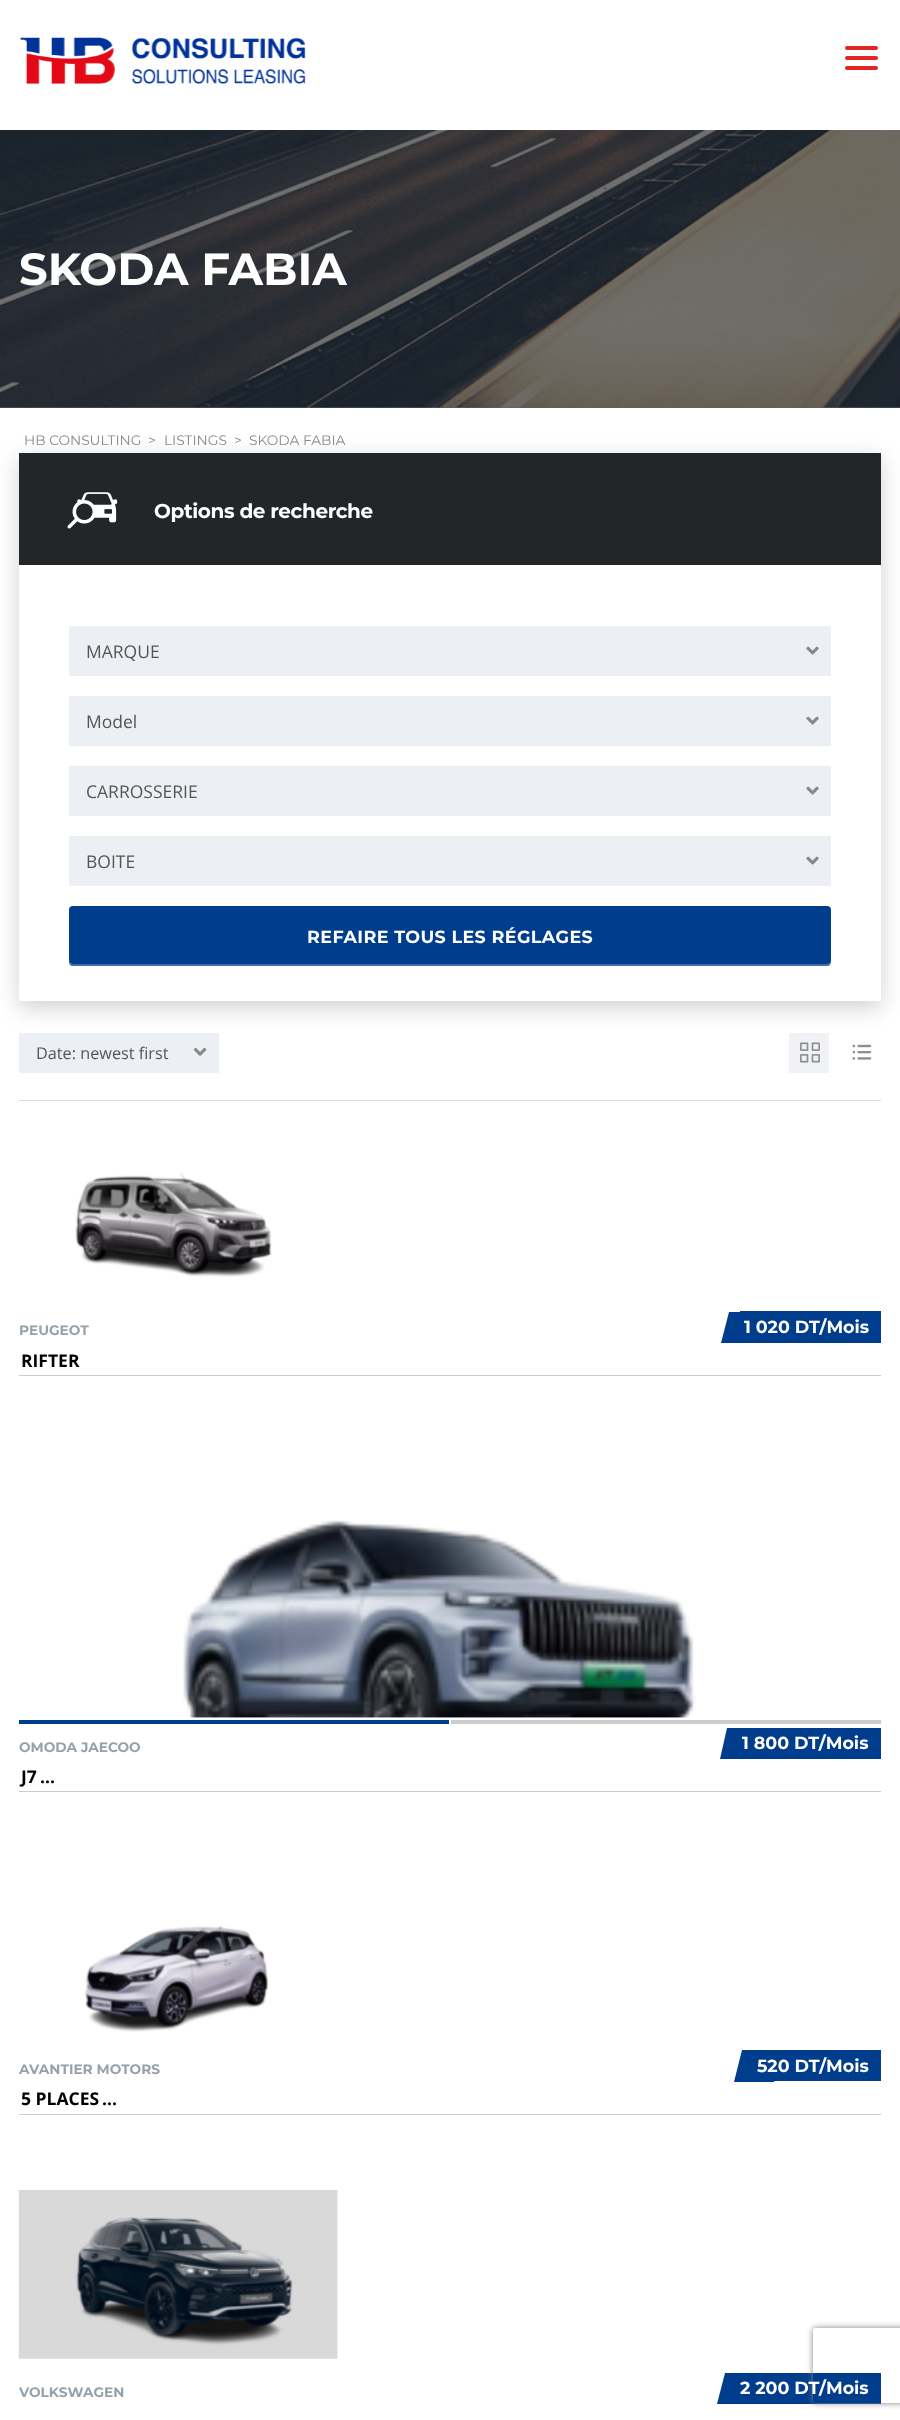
(async () => {
  const canvas = document.querySelector("canvas");
  canvas.width = 900;
  canvas.height = 2420;
  const ctx = canvas.getContext("2d");
  ctx.miterLimit = 4;
  ctx.fontKerning = "normal";
  async function loadImage(src) {
    const img = new Image();
    img.src = src;
    await img.decode();
    return img;
  }
  let path;

  ctx.fillStyle = "#ffffff";
  ctx.fillRect(0, 0, 900, 2420);
  ctx.drawImage(await loadImage("img/1.png"), 19, 37, 287, 47);
  ctx.fillStyle = "#e32524";
  ctx.beginPath();
  ctx.roundRect(845, 46, 33, 4, 2);
  ctx.fill();
  ctx.beginPath();
  ctx.roundRect(845, 56, 33, 4, 2);
  ctx.fill();
  ctx.beginPath();
  ctx.roundRect(845, 66, 33, 4, 2);
  ctx.fill();
  ctx.fillStyle = "#59636b";
  ctx.fillRect(0, 407, 900, 1);
  ctx.drawImage(await loadImage("img/2.png"), 0, 130, 900, 278);
  ctx.fillStyle = "#eceff3";
  ctx.fillRect(19, 1033, 200, 40);
  ctx.fillStyle = "#f0f2f5";
  ctx.fillRect(789, 1033, 40, 40);
  ctx.fillStyle = "rgba(0, 0, 0, 0.18)";
  ctx.filter = "blur(11px)";
  ctx.beginPath();
  ctx.rect(19, 459, 862, 549);
  ctx.fill();
  ctx.filter = "none";
  ctx.fillStyle = "#ffffff";
  ctx.fillRect(19, 565, 862, 436);
  ctx.fillStyle = "#232628";
  ctx.fillRect(19, 453, 862, 112);
  ctx.drawImage(await loadImage("img/3.png"), 67, 492, 51, 37);
  ctx.fillStyle = "#eceff3";
  ctx.fillRect(69, 626, 762, 50);
  ctx.drawImage(await loadImage("img/4.png"), 806, 646, 13, 9);
  ctx.fillRect(69, 696, 762, 50);
  ctx.drawImage(await loadImage("img/4.png"), 806, 716, 13, 9);
  ctx.fillRect(69, 766, 762, 50);
  ctx.drawImage(await loadImage("img/4.png"), 806, 786, 13, 9);
  ctx.fillRect(69, 836, 762, 50);
  ctx.drawImage(await loadImage("img/4.png"), 806, 856, 13, 9);
  ctx.fillStyle = "#406eaa";
  path = new Path2D("M69 961C69 964 70 966 73 966H827C830 966 831 964 831 961C830 963 829 964 828 964H72C71 964 70 963 69 961Z");
  ctx.fill(path);
  ctx.fillStyle = "#003d8d";
  ctx.beginPath();
  ctx.roundRect(69, 906, 762, 58, 4);
  ctx.fill();
  ctx.fillStyle = "#dddddd";
  ctx.fillRect(19, 1100, 862, 1);
  ctx.drawImage(await loadImage("img/5.png"), 193, 1047, 14, 9);
  ctx.drawImage(await loadImage("img/6.png"), 800, 1042, 20, 21);
  ctx.drawImage(await loadImage("img/7.png"), 852, 1044, 20, 16);
  ctx.drawImage(await loadImage("img/8.png"), 75, 1172, 197, 105);
  ctx.fillStyle = "#cccccc";
  ctx.fillRect(19, 1375, 862, 1);
  ctx.fillStyle = "#003d8d";
  ctx.fillRect(740, 1311, 141, 32);
  path = new Path2D("M729 1312H769L761 1343H721Z");
  ctx.fill(path);
  ctx.drawImage(await loadImage("img/9.png"), 183, 1520, 513, 198);
  for (const [x, y, w, h, color] of [
    [19, 1720, 430, 4, "#003d8d"],
    [451, 1720, 430, 4, "#cccccc"],
    [19, 1791, 862, 1, "#cccccc"],
    [760, 1728, 121, 31, "#003d8d"],
  ]) {
    ctx.fillStyle = color;
    ctx.fillRect(x, y, w, h);
  }
  path = new Path2D("M727 1728H767L760 1759H720Z");
  ctx.fill(path);
  ctx.drawImage(await loadImage("img/10.png"), 84, 1925, 184, 107);
  ctx.fillStyle = "#cccccc";
  ctx.fillRect(19, 2114, 862, 1);
  ctx.fillStyle = "#003d8d";
  ctx.fillRect(774, 2050, 107, 31);
  path = new Path2D("M742 2050H782L774 2082H734Z");
  ctx.fill(path);
  ctx.drawImage(await loadImage("img/11.png"), 18, 2190, 320, 169);
  ctx.fillRect(757, 2373, 124, 31);
  path = new Path2D("M725 2373H765L757 2404H717Z");
  ctx.fill(path);
  ctx.save();
  path = new Path2D("M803 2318H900V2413H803ZM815.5 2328H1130.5C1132 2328 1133 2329 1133 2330.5V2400.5C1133 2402 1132 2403 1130.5 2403H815.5C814 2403 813 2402 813 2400.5V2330.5C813 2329 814 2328 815.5 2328Z");
  ctx.clip(path, "evenodd");
  ctx.fillStyle = "#808080";
  ctx.filter = "blur(3px)";
  ctx.beginPath();
  ctx.roundRect(813, 2328, 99, 75, 2.5);
  ctx.fill();
  ctx.filter = "none";
  ctx.restore();
  ctx.font = "bold 45px Montserrat";
  ctx.fillStyle = "#ffffff";
  ctx.fillText("SKODA FABIA", 19, 285);
  ctx.font = "13.75px Montserrat";
  ctx.fillStyle = "#888888";
  for (const [text, x, y] of [
    ["HB CONSULTING", 24, 445],
    [">", 148, 445],
    ["LISTINGS", 164, 445],
    [">", 234, 445],
    ["SKODA FABIA", 249, 445],
  ]) {
    ctx.fillText(text, x, y);
  }
  ctx.letterSpacing = "-0.4px";
  ctx.font = "bold 20px Montserrat";
  ctx.fillStyle = "#ffffff";
  ctx.fillText("Options de recherche", 154, 518);
  ctx.letterSpacing = "0px";
  ctx.font = "17.5px Open Sans";
  ctx.fillStyle = "#555555";
  for (const [text, x, y] of [
    ["MARQUE", 86, 658],
    ["Model", 86, 728],
    ["CARROSSERIE", 86, 798],
    ["BOITE", 86, 868],
  ]) {
    ctx.fillText(text, x, y);
  }
  ctx.letterSpacing = "0.4px";
  ctx.font = "bold 17.5px Montserrat";
  ctx.fillStyle = "#ffffff";
  ctx.fillText("REFAIRE TOUS LES RÉGLAGES", 307, 943);
  ctx.letterSpacing = "0px";
  ctx.font = "16.25px Open Sans";
  ctx.fillStyle = "#555555";
  ctx.fillText("Date: newest first", 36, 1059);
  ctx.font = "bold 13.75px Montserrat";
  ctx.fillStyle = "#95a2ab";
  ctx.fillText("PEUGEOT", 19, 1335);
  ctx.font = "bold 17.5px Montserrat";
  ctx.fillStyle = "#ffffff";
  ctx.fillText("1 020 DT/Mois", 744, 1333);
  ctx.font = "bold 17.5px Open Sans";
  ctx.fillStyle = "#000000";
  ctx.fillText("RIFTER", 21, 1367);
  ctx.font = "bold 13.75px Montserrat";
  ctx.fillStyle = "#95a2ab";
  ctx.fillText("OMODA JAECOO", 19, 1752);
  ctx.font = "bold 17.5px Montserrat";
  ctx.fillStyle = "#ffffff";
  ctx.fillText("1 800 DT/Mois", 742, 1749);
  ctx.font = "bold 17.5px Open Sans";
  ctx.fillStyle = "#000000";
  ctx.fillText("J7", 21, 1783);
  ctx.fillText("...", 40, 1783);
  ctx.font = "bold 13.75px Montserrat";
  ctx.fillStyle = "#95a2ab";
  ctx.fillText("AVANTIER MOTORS", 19, 2074);
  ctx.font = "bold 17.5px Montserrat";
  ctx.fillStyle = "#ffffff";
  ctx.fillText("520 DT/Mois", 757, 2072);
  ctx.font = "bold 17.5px Open Sans";
  ctx.fillStyle = "#000000";
  ctx.fillText("5 PLACES", 21, 2105);
  ctx.fillText("...", 102, 2105);
  ctx.font = "bold 13.75px Montserrat";
  ctx.fillStyle = "#95a2ab";
  ctx.fillText("VOLKSWAGEN", 19, 2397);
  ctx.font = "bold 17.5px Montserrat";
  ctx.fillStyle = "#ffffff";
  ctx.fillText("2 200 DT/Mois", 740, 2394);
})();
